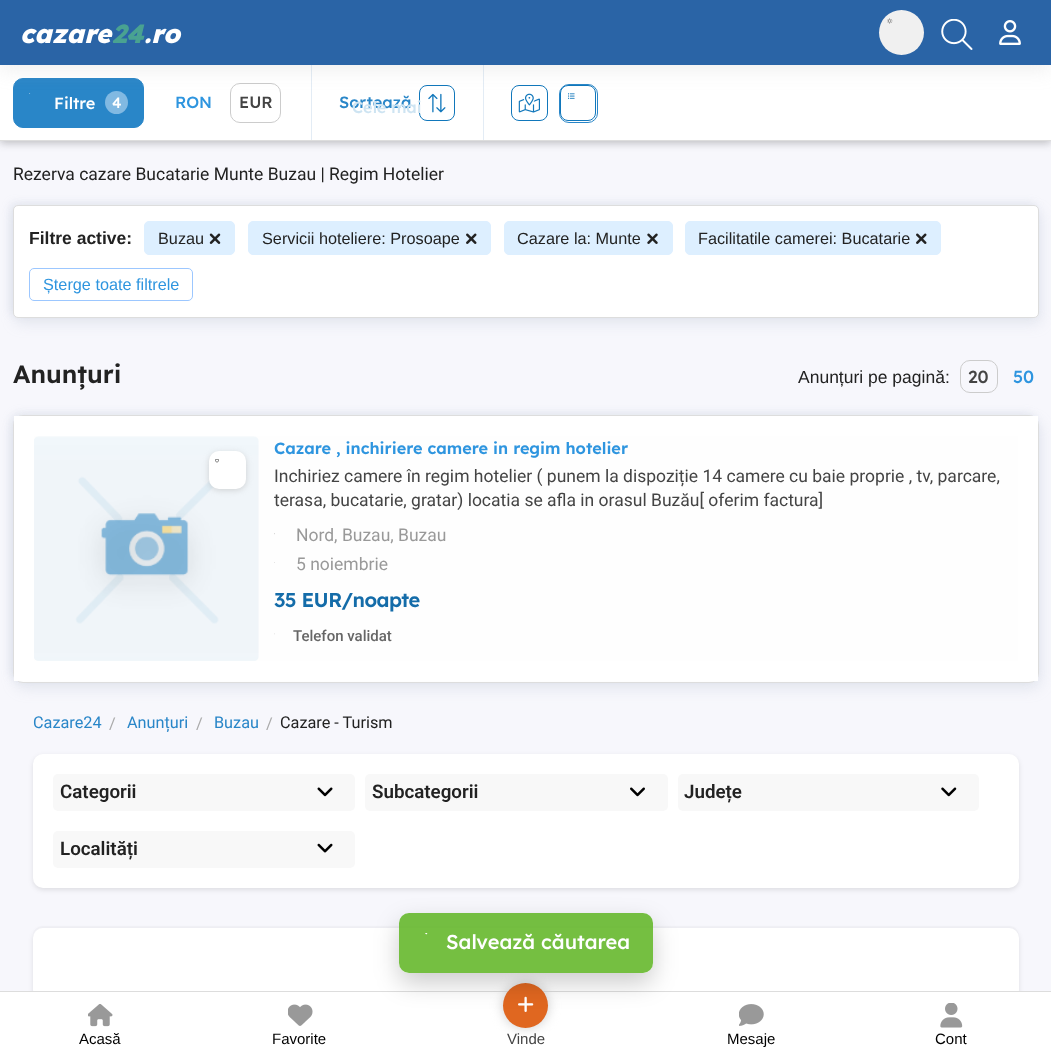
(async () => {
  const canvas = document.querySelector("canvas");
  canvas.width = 1051;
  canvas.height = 1060;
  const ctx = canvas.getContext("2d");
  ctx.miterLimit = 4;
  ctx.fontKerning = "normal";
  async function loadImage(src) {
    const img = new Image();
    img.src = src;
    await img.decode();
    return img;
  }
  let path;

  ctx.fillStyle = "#f7f7fc";
  ctx.fillRect(0, 0, 1051, 1060);
  ctx.fillStyle = "rgba(32, 33, 36, 0.28)";
  ctx.filter = "blur(4px)";
  ctx.beginPath();
  ctx.rect(0, 1, 1051, 142);
  ctx.fill();
  ctx.filter = "none";
  ctx.fillStyle = "#ffffff";
  ctx.fillRect(0, 65, 1051, 75);
  ctx.fillStyle = "#2986c8";
  ctx.beginPath();
  ctx.roundRect(13.5, 78.5, 130, 49, 9.5);
  ctx.fill();
  ctx.strokeStyle = "#2986c8";
  ctx.stroke();
  ctx.drawImage(await loadImage("img/10.png"), 29, 93, 2, 1);
  ctx.fillStyle = "#81b9e2";
  ctx.beginPath();
  ctx.arc(116.5, 102.5, 11.5, 0, Math.PI * 2);
  ctx.fill();
  ctx.beginPath();
  ctx.roundRect(230.5, 83.5, 50, 39, 9.5);
  ctx.strokeStyle = "#cccccc";
  ctx.stroke();
  ctx.fillStyle = "#e3ecf5";
  ctx.fillRect(311, 65, 1, 75);
  ctx.beginPath();
  ctx.roundRect(419.5, 85.5, 35, 35, 7.5);
  ctx.strokeStyle = "#1177bb";
  ctx.stroke();
  ctx.drawImage(await loadImage("img/11.png"), 428, 93, 18, 20);
  ctx.fillRect(483, 65, 1, 75);
  ctx.beginPath();
  ctx.roundRect(511.5, 85.5, 36, 35, 7.5);
  ctx.stroke();
  ctx.drawImage(await loadImage("img/12.png"), 518, 93, 22, 20);
  ctx.beginPath();
  ctx.roundRect(559.5, 84.5, 38, 38, 9.5);
  ctx.strokeStyle = "#2986c8";
  ctx.stroke();
  ctx.beginPath();
  ctx.roundRect(560.5, 85.5, 35, 35, 7.5);
  ctx.strokeStyle = "#1177bb";
  ctx.stroke();
  ctx.drawImage(await loadImage("img/13.png"), 568, 93, 7, 6);
  ctx.fillStyle = "rgba(170, 170, 170, 0.19)";
  ctx.filter = "blur(9.5px)";
  ctx.beginPath();
  ctx.rect(0, 5, 1051, 65);
  ctx.fill();
  ctx.filter = "none";
  ctx.fillStyle = "#2a64a6";
  ctx.fillRect(0, 0, 1051, 65);
  ctx.fillStyle = "#f0f0f0";
  ctx.beginPath();
  ctx.arc(901.5, 32.5, 22.5, 0, Math.PI * 2);
  ctx.fill();
  ctx.drawImage(await loadImage("img/1.png"), 887, 18, 6, 6);
  ctx.drawImage(await loadImage("img/2.png"), 941, 19, 32, 31);
  ctx.drawImage(await loadImage("img/3.png"), 999, 20, 22, 25);
  ctx.fillStyle = "#f2f2f7";
  path = new Path2D("M43 926C38 926 34 929 33 934C35 930 38 928 42 928H1009C1014 928 1019 932 1019 938V992V945C1019 937 1020 926 1009 926Z");
  ctx.fill(path);
  ctx.fillStyle = "rgba(0, 0, 0, 0.1)";
  ctx.filter = "blur(2.5px)";
  ctx.beginPath();
  ctx.roundRect(33, 930, 986, 73, 10);
  ctx.fill();
  ctx.filter = "none";
  ctx.fillStyle = "#ffffff";
  ctx.beginPath();
  ctx.roundRect(33, 928, 986, 72, 10);
  ctx.fill();
  ctx.fillRect(0, 992, 1051, 68);
  ctx.fillStyle = "#dddddd";
  ctx.fillRect(0, 991, 1051, 1);
  ctx.fillStyle = "#cccccc";
  ctx.filter = "blur(6px)";
  ctx.beginPath();
  ctx.roundRect(503, 983, 45, 45, 22.5);
  ctx.fill();
  ctx.filter = "none";
  ctx.fillStyle = "#e06720";
  ctx.beginPath();
  ctx.arc(525.5, 1005.5, 22.5, 0, Math.PI * 2);
  ctx.fill();
  ctx.drawImage(await loadImage("img/7.png"), 518, 996, 16, 16);
  ctx.fillStyle = "rgba(0, 0, 0, 0.1)";
  ctx.filter = "blur(2.5px)";
  ctx.beginPath();
  ctx.roundRect(33, 756, 986, 134, 10);
  ctx.fill();
  ctx.filter = "none";
  ctx.fillStyle = "#ffffff";
  ctx.beginPath();
  ctx.roundRect(33, 754, 986, 134, 10);
  ctx.fill();
  ctx.save();
  path = new Path2D("M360 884H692V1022H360ZM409 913H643C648.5 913 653 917.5 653 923V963C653 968.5 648.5 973 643 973H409C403.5 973 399 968.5 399 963V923C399 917.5 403.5 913 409 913Z");
  ctx.clip(path, "evenodd");
  ctx.fillStyle = "rgba(0, 0, 0, 0.2)";
  ctx.filter = "blur(12.5px)";
  ctx.beginPath();
  ctx.roundRect(399, 923, 254, 60, 10);
  ctx.fill();
  ctx.filter = "none";
  ctx.restore();
  ctx.fillStyle = "rgba(93, 180, 32, 0.85)";
  ctx.beginPath();
  ctx.roundRect(399, 913, 254, 60, 10);
  ctx.fill();
  ctx.drawImage(await loadImage("img/4.png"), 425, 933, 3, 2);
  ctx.drawImage(await loadImage("img/5.png"), 88, 1004, 25, 23);
  ctx.drawImage(await loadImage("img/6.png"), 288, 1004, 25, 22);
  ctx.drawImage(await loadImage("img/8.png"), 739, 1004, 25, 22);
  ctx.drawImage(await loadImage("img/9.png"), 940, 1003, 23, 25);
  ctx.fillStyle = "#dddddd";
  ctx.fillRect(0, 140, 1051, 1);
  ctx.fillStyle = "rgba(154, 168, 192, 0.2)";
  ctx.filter = "blur(7px)";
  ctx.beginPath();
  ctx.roundRect(15, 211, 1026, 113, 5);
  ctx.fill();
  ctx.filter = "none";
  ctx.filter = "blur(4px)";
  ctx.beginPath();
  ctx.roundRect(10, 203, 1026, 112, 5);
  ctx.fill();
  ctx.filter = "none";
  ctx.fillStyle = "#ffffff";
  ctx.beginPath();
  ctx.roundRect(13.5, 205.5, 1025, 112, 4.5);
  ctx.fill();
  ctx.strokeStyle = "#dddddd";
  ctx.stroke();
  ctx.fillStyle = "#ddefff";
  ctx.beginPath();
  ctx.roundRect(144.5, 221.5, 90, 33, 4.5);
  ctx.fill();
  ctx.strokeStyle = "#ddefff";
  ctx.stroke();
  ctx.drawImage(await loadImage("img/14.png"), 209, 233, 12, 11);
  ctx.beginPath();
  ctx.roundRect(248.5, 221.5, 242, 33, 4.5);
  ctx.fill();
  ctx.stroke();
  ctx.drawImage(await loadImage("img/15.png"), 466, 233, 11, 11);
  ctx.beginPath();
  ctx.roundRect(504.5, 221.5, 168, 33, 4.5);
  ctx.fill();
  ctx.stroke();
  ctx.drawImage(await loadImage("img/16.png"), 647, 233, 11, 11);
  ctx.beginPath();
  ctx.roundRect(685.5, 221.5, 255, 33, 4.5);
  ctx.fill();
  ctx.stroke();
  ctx.drawImage(await loadImage("img/15.png"), 916, 233, 11, 11);
  ctx.beginPath();
  ctx.roundRect(29.5, 268.5, 163, 32, 4.5);
  ctx.strokeStyle = "#9cc7ff";
  ctx.stroke();
  ctx.beginPath();
  ctx.roundRect(960.5, 360.5, 37, 32, 9.5);
  ctx.strokeStyle = "#cccccc";
  ctx.stroke();
  ctx.fillStyle = "rgba(154, 168, 192, 0.2)";
  ctx.filter = "blur(7px)";
  ctx.beginPath();
  ctx.roundRect(15, 421, 1026, 268, 10);
  ctx.fill();
  ctx.filter = "none";
  ctx.filter = "blur(4px)";
  ctx.beginPath();
  ctx.roundRect(10, 413, 1026, 267, 10);
  ctx.fill();
  ctx.filter = "none";
  ctx.fillStyle = "#fefefe";
  ctx.beginPath();
  ctx.roundRect(13.5, 415.5, 1025, 267, 9.5);
  ctx.fill();
  ctx.strokeStyle = "#dddddd";
  ctx.stroke();
  ctx.beginPath();
  ctx.rect(24, 426, 1004, 245);
  ctx.strokeStyle = "#ffffff";
  ctx.lineWidth = 20;
  ctx.stroke();
  ctx.drawImage(await loadImage("img/17.png"), 34, 436, 225, 225);
  ctx.fillStyle = "rgba(170, 170, 170, 0.5)";
  ctx.filter = "blur(3px)";
  ctx.beginPath();
  ctx.roundRect(209, 453, 37, 37, 10);
  ctx.fill();
  ctx.filter = "none";
  ctx.fillStyle = "#ffffff";
  ctx.beginPath();
  ctx.roundRect(209, 451, 37, 38, 10);
  ctx.fill();
  ctx.drawImage(await loadImage("img/18.png"), 215, 459, 4, 4);
  ctx.drawImage(await loadImage("img/19.png"), 274, 533, 1, 2);
  ctx.fillStyle = "#e5e5e5";
  ctx.fillRect(274, 562, 1, 1);
  ctx.drawImage(await loadImage("img/20.png"), 274, 633, 1, 2);
  ctx.fillStyle = "#f8f8f8";
  ctx.beginPath();
  ctx.roundRect(53, 774, 302, 37, 5);
  ctx.fill();
  ctx.drawImage(await loadImage("img/21.png"), 317, 787, 16, 10);
  ctx.beginPath();
  ctx.roundRect(365, 774, 303, 37, 5);
  ctx.fill();
  ctx.drawImage(await loadImage("img/22.png"), 630, 787, 15, 10);
  ctx.beginPath();
  ctx.roundRect(678, 774, 301, 37, 5);
  ctx.fill();
  ctx.drawImage(await loadImage("img/23.png"), 941, 787, 16, 10);
  ctx.beginPath();
  ctx.roundRect(53, 831, 302, 37, 5);
  ctx.fill();
  ctx.drawImage(await loadImage("img/24.png"), 317, 843, 16, 10);
  ctx.font = "italic 800 26px Lexend";
  ctx.fillStyle = "#ffffff";
  ctx.fillText("cazare", 20, 43);
  ctx.fillStyle = "#49a291";
  ctx.fillText("24", 112, 43);
  ctx.fillStyle = "#ffffff";
  ctx.fillText(".ro", 144, 43);
  ctx.font = "500 20px Lexend";
  ctx.fillText("Salvează căutarea", 446, 949);
  ctx.font = "15px Liberation Sans";
  ctx.fillStyle = "#000000";
  ctx.fillText("Acasă", 79, 1044);
  ctx.fillText("Favorite", 272, 1044);
  ctx.fillStyle = "#444444";
  ctx.fillText("Vinde", 507, 1044);
  ctx.fillStyle = "#000000";
  ctx.fillText("Mesaje", 727, 1044);
  ctx.fillText("Cont", 935, 1044);
  ctx.font = "500 16.25px Lexend";
  ctx.fillStyle = "#ffffff";
  ctx.fillText("Filtre", 54, 109);
  ctx.font = "500 15px Lexend";
  ctx.fillText("4", 112, 108);
  ctx.font = "500 16.25px Lexend";
  ctx.fillStyle = "#2e95df";
  ctx.fillText("RON", 175, 108);
  ctx.fillStyle = "#444444";
  ctx.fillText("EUR", 239, 108);
  ctx.fillStyle = "#2986c8";
  ctx.fillText("Sortează", 339, 108);
  ctx.fillStyle = "#cee4f2";
  ctx.fillText("Cele mai", 352, 113);
  ctx.font = "17.5px Roboto";
  ctx.fillStyle = "#222222";
  ctx.fillText("Rezerva cazare Bucatarie Munte Buzau | Regim Hotelier", 13, 180);
  ctx.font = "bold 17.5px Liberation Sans";
  ctx.fillText("Filtre active:", 29, 244);
  ctx.font = "16.25px Liberation Sans";
  for (const [text, x, y] of [
    ["Buzau", 158, 244],
    ["Servicii hoteliere: Prosoape", 262, 244],
    ["Cazare la: Munte", 517, 244],
    ["Facilitatile camerei: Bucatarie", 698, 244],
  ]) {
    ctx.fillText(text, x, y);
  }
  ctx.fillStyle = "#2e95df";
  ctx.fillText("Șterge toate filtrele", 43, 290);
  ctx.font = "600 25px Lexend";
  ctx.fillStyle = "#222222";
  ctx.fillText("Anunțuri", 13, 383);
  ctx.font = "17.5px Liberation Sans";
  ctx.fillText("Anunțuri pe pagină:", 798, 383);
  ctx.font = "500 17.5px Lexend";
  ctx.fillStyle = "#444444";
  ctx.fillText("20", 968, 383);
  ctx.fillStyle = "#2e95df";
  ctx.fillText("50", 1013, 383);
  ctx.font = "600 16.25px Lexend";
  ctx.fillText("Cazare , inchiriere camere in regim hotelier", 274, 454);
  ctx.font = "17.5px Roboto";
  ctx.fillStyle = "#444444";
  ctx.fillText("Inchiriez camere în regim hotelier ( punem la dispoziție 14 camere cu baie proprie , tv, parcare,", 274, 482);
  ctx.fillText("terasa, bucatarie, gratar) locatia se afla in orasul Buzău[ oferim factura]", 274, 506);
  ctx.fillStyle = "#999999";
  ctx.fillText("Nord, Buzau, Buzau", 296, 541);
  ctx.fillText("5 noiembrie", 296, 570);
  ctx.letterSpacing = "-0.6px";
  ctx.font = "600 20px Lexend";
  ctx.fillStyle = "#146ca9";
  ctx.fillText("35 EUR/noapte", 274, 607);
  ctx.letterSpacing = "0px";
  ctx.font = "500 15px Roboto";
  ctx.fillStyle = "#666666";
  ctx.fillText("Telefon validat", 293, 641);
  ctx.font = "16.25px Roboto";
  ctx.fillStyle = "#2986c8";
  ctx.fillText("Cazare24", 33, 728);
  ctx.fillStyle = "#aaaaaa";
  ctx.fillText("/", 109, 729);
  ctx.fillStyle = "#2986c8";
  ctx.fillText("Anunțuri", 127, 728);
  ctx.fillStyle = "#aaaaaa";
  ctx.fillText("/", 196, 729);
  ctx.fillStyle = "#2986c8";
  ctx.fillText("Buzau", 214, 728);
  ctx.fillStyle = "#aaaaaa";
  ctx.fillText("/", 266, 729);
  ctx.fillStyle = "#222222";
  ctx.fillText("Cazare - Turism", 280, 728);
  ctx.font = "600 18.75px Roboto";
  for (const [text, x, y] of [
    ["Categorii", 60, 798],
    ["Subcategorii", 372, 798],
    ["Județe", 684, 798],
    ["Localități", 60, 855],
  ]) {
    ctx.fillText(text, x, y);
  }
})();
